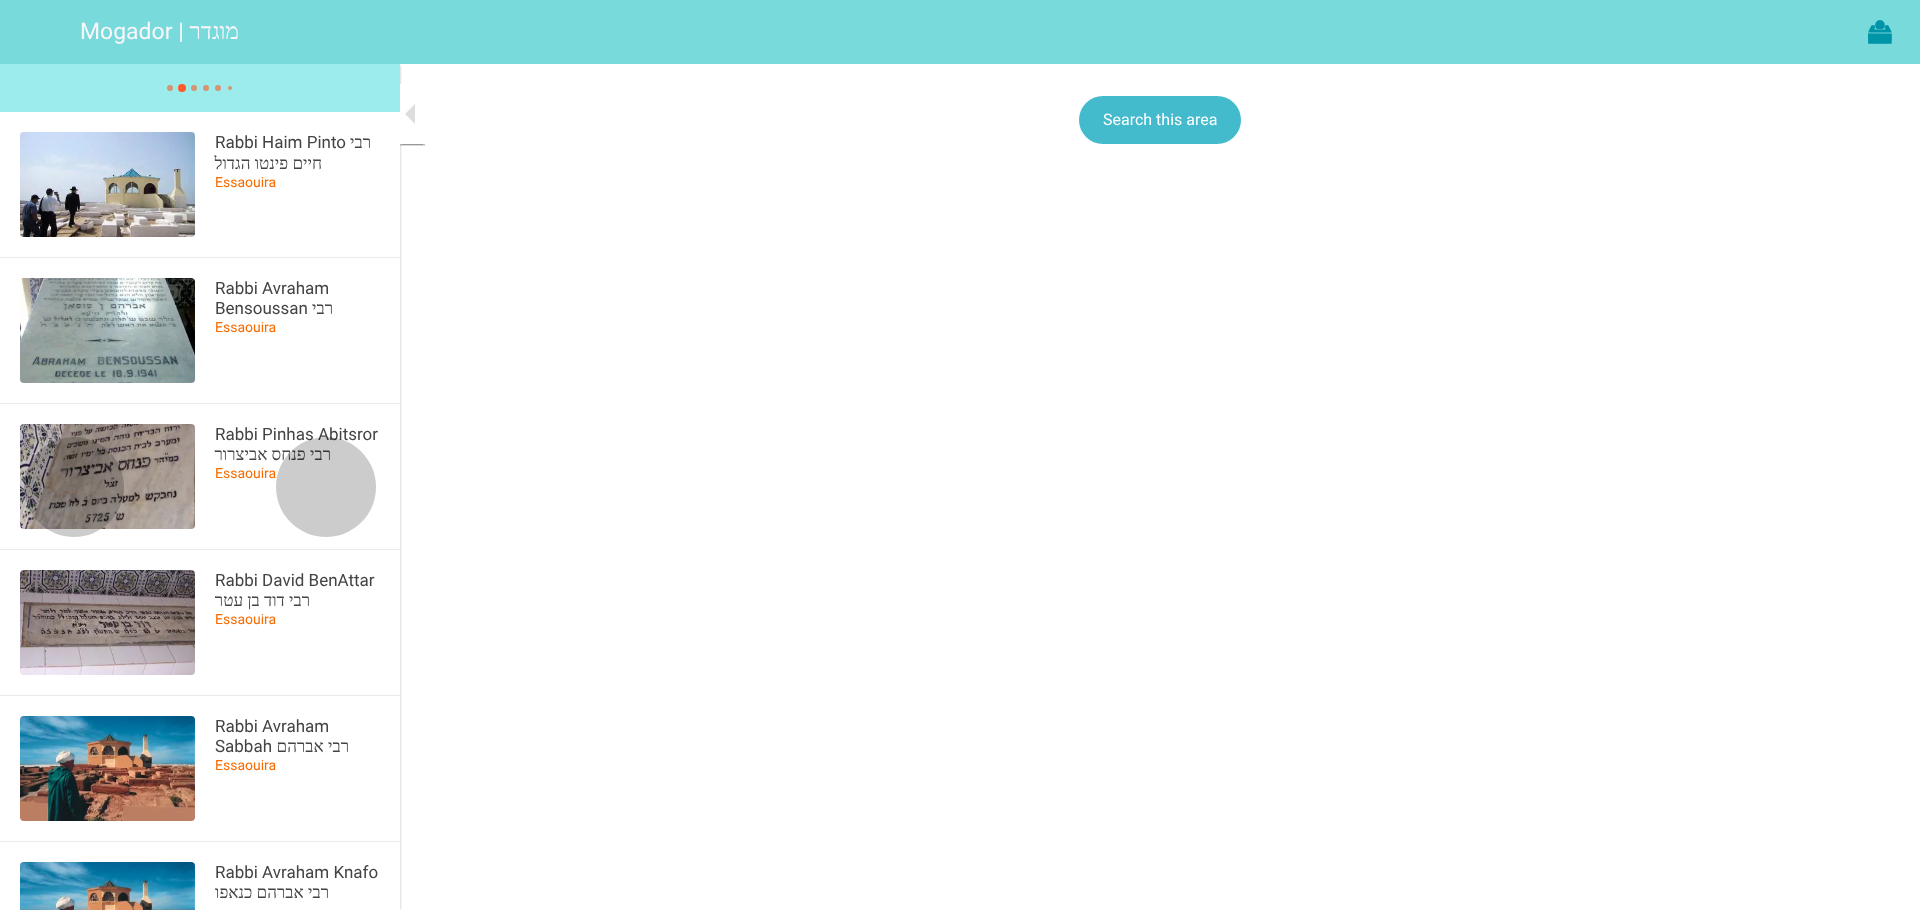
(async () => {
  const canvas = document.querySelector("canvas");
  canvas.width = 1920;
  canvas.height = 910;
  const ctx = canvas.getContext("2d");
  ctx.miterLimit = 4;
  ctx.fontKerning = "normal";
  async function loadImage(src) {
    const img = new Image();
    img.src = src;
    await img.decode();
    return img;
  }
  let path;

  ctx.fillStyle = "#ffffff";
  ctx.fillRect(0, 0, 1920, 910);
  ctx.save();
  ctx.beginPath();
  ctx.rect(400, 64, 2, 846);
  ctx.clip();
  ctx.fillStyle = "rgba(0, 0, 0, 0.12)";
  ctx.filter = "blur(2.5px)";
  ctx.beginPath();
  ctx.rect(0, 65, 400, 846);
  ctx.fill();
  ctx.filter = "none";
  ctx.restore();
  ctx.save();
  ctx.beginPath();
  ctx.rect(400, 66, 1, 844);
  ctx.clip();
  ctx.fillStyle = "rgba(0, 0, 0, 0.14)";
  ctx.filter = "blur(1px)";
  ctx.beginPath();
  ctx.rect(0, 66, 400, 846);
  ctx.fill();
  ctx.filter = "none";
  ctx.restore();
  ctx.fillStyle = "#79dadc";
  ctx.fillRect(0, 0, 1920, 64);
  ctx.drawImage(await loadImage("img/1.png"), 1868, 20, 24, 24);
  ctx.fillStyle = "#43bbcd";
  ctx.beginPath();
  ctx.roundRect(1079, 96, 162, 48, 24);
  ctx.fill();
  for (const [x, y, w, h, color] of [
    [400, 144, 25, 1, "rgba(0, 0, 0, 0.12)"],
    [400, 144, 25, 2, "rgba(0, 0, 0, 0.14)"],
    [402, 144, 21, 1, "rgba(0, 0, 0, 0.2)"],
    [400, 84, 3, 60, "#ffffff"],
  ]) {
    ctx.fillStyle = color;
    ctx.fillRect(x, y, w, h);
  }
  ctx.fillStyle = "#dddddd";
  path = new Path2D("M415 104V124L405 114Z");
  ctx.fill(path);
  ctx.fillStyle = "#9ceceb";
  ctx.fillRect(0, 64, 400, 48);
  ctx.fillStyle = "#d79475";
  ctx.beginPath();
  ctx.arc(170, 88, 3, 0, Math.PI * 2);
  ctx.fill();
  ctx.fillStyle = "#ff5927";
  ctx.beginPath();
  ctx.arc(182, 88, 4, 0, Math.PI * 2);
  ctx.fill();
  ctx.fillStyle = "#d79475";
  ctx.beginPath();
  ctx.arc(194, 88, 3, 0, Math.PI * 2);
  ctx.fill();
  ctx.beginPath();
  ctx.arc(206, 88, 3, 0, Math.PI * 2);
  ctx.fill();
  ctx.beginPath();
  ctx.arc(218, 88, 3, 0, Math.PI * 2);
  ctx.fill();
  ctx.beginPath();
  ctx.arc(230, 88, 2, 0, Math.PI * 2);
  ctx.fill();
  ctx.drawImage(await loadImage("img/4.png"), 20, 424, 175, 105);
  ctx.fillStyle = "rgba(0, 0, 0, 0.2)";
  ctx.beginPath();
  ctx.arc(74, 487, 50, 0, Math.PI * 2);
  ctx.fill();
  ctx.drawImage(await loadImage("img/2.png"), 20, 132, 175, 105);
  ctx.fillStyle = "#eaeaea";
  ctx.fillRect(0, 257, 400, 1);
  ctx.drawImage(await loadImage("img/3.png"), 20, 278, 175, 105);
  ctx.fillRect(0, 403, 400, 1);
  ctx.fillRect(0, 549, 400, 1);
  ctx.drawImage(await loadImage("img/5.png"), 20, 570, 175, 105);
  ctx.fillRect(0, 695, 400, 1);
  ctx.drawImage(await loadImage("img/6.png"), 20, 716, 175, 105);
  ctx.fillRect(0, 841, 400, 1);
  ctx.drawImage(await loadImage("img/7.png"), 20, 862, 175, 48);
  ctx.font = "23px Roboto";
  ctx.fillStyle = "#faf7fa";
  ctx.fillText("Mogador |", 80, 39);
  ctx.direction = "rtl";
  ctx.font = "23px Liberation Serif";
  ctx.fillText("מוגדר", 239, 39);
  ctx.direction = "ltr";
  ctx.font = "16px Roboto";
  ctx.fillStyle = "#ffffff";
  ctx.fillText("Search this area", 1103, 125);
  ctx.font = "17px Roboto";
  ctx.fillStyle = "#444444";
  ctx.fillText("Rabbi Haim Pinto", 215, 148);
  ctx.direction = "rtl";
  ctx.font = "17px Liberation Serif";
  ctx.fillText("רבי", 371, 148);
  ctx.fillText("חיים פינטו הגדול", 322, 169);
  ctx.direction = "ltr";
  ctx.font = "14px Roboto";
  ctx.fillStyle = "#f76b00";
  ctx.fillText("Essaouira", 215, 187);
  ctx.font = "17px Roboto";
  ctx.fillStyle = "#444444";
  ctx.fillText("Rabbi Avraham", 215, 294);
  ctx.fillText("Bensoussan", 215, 314);
  ctx.direction = "rtl";
  ctx.font = "17px Liberation Serif";
  ctx.fillText("רבי", 333, 314);
  ctx.direction = "ltr";
  ctx.font = "14px Roboto";
  ctx.fillStyle = "#f76b00";
  ctx.fillText("Essaouira", 215, 332);
  ctx.font = "17px Roboto";
  ctx.fillStyle = "#444444";
  ctx.fillText("Rabbi Pinhas Abitsror", 215, 440);
  ctx.direction = "rtl";
  ctx.font = "17px Liberation Serif";
  ctx.fillText("רבי פנחס אביצרור", 331, 460);
  ctx.fillStyle = "rgba(0, 0, 0, 0.2)";
  ctx.beginPath();
  ctx.arc(326, 487, 50, 0, Math.PI * 2);
  ctx.fill();
  ctx.direction = "ltr";
  ctx.font = "14px Roboto";
  ctx.fillStyle = "#f76b00";
  ctx.fillText("Essaouira", 215, 478);
  ctx.font = "17px Roboto";
  ctx.fillStyle = "#444444";
  ctx.fillText("Rabbi David BenAttar", 215, 586);
  ctx.direction = "rtl";
  ctx.font = "17px Liberation Serif";
  ctx.fillText("רבי דוד בן עטר", 310, 606);
  ctx.direction = "ltr";
  ctx.font = "14px Roboto";
  ctx.fillStyle = "#f76b00";
  ctx.fillText("Essaouira", 215, 624);
  ctx.font = "17px Roboto";
  ctx.fillStyle = "#444444";
  ctx.fillText("Rabbi Avraham", 215, 732);
  ctx.fillText("Sabbah", 215, 752);
  ctx.direction = "rtl";
  ctx.font = "17px Liberation Serif";
  ctx.fillText("רבי אברהם", 349, 752);
  ctx.direction = "ltr";
  ctx.font = "14px Roboto";
  ctx.fillStyle = "#f76b00";
  ctx.fillText("Essaouira", 215, 770);
  ctx.font = "17px Roboto";
  ctx.fillStyle = "#444444";
  ctx.fillText("Rabbi Avraham Knafo", 215, 878);
  ctx.direction = "rtl";
  ctx.font = "17px Liberation Serif";
  ctx.fillText("רבי אברהם כנאפו", 329, 898);
})();
